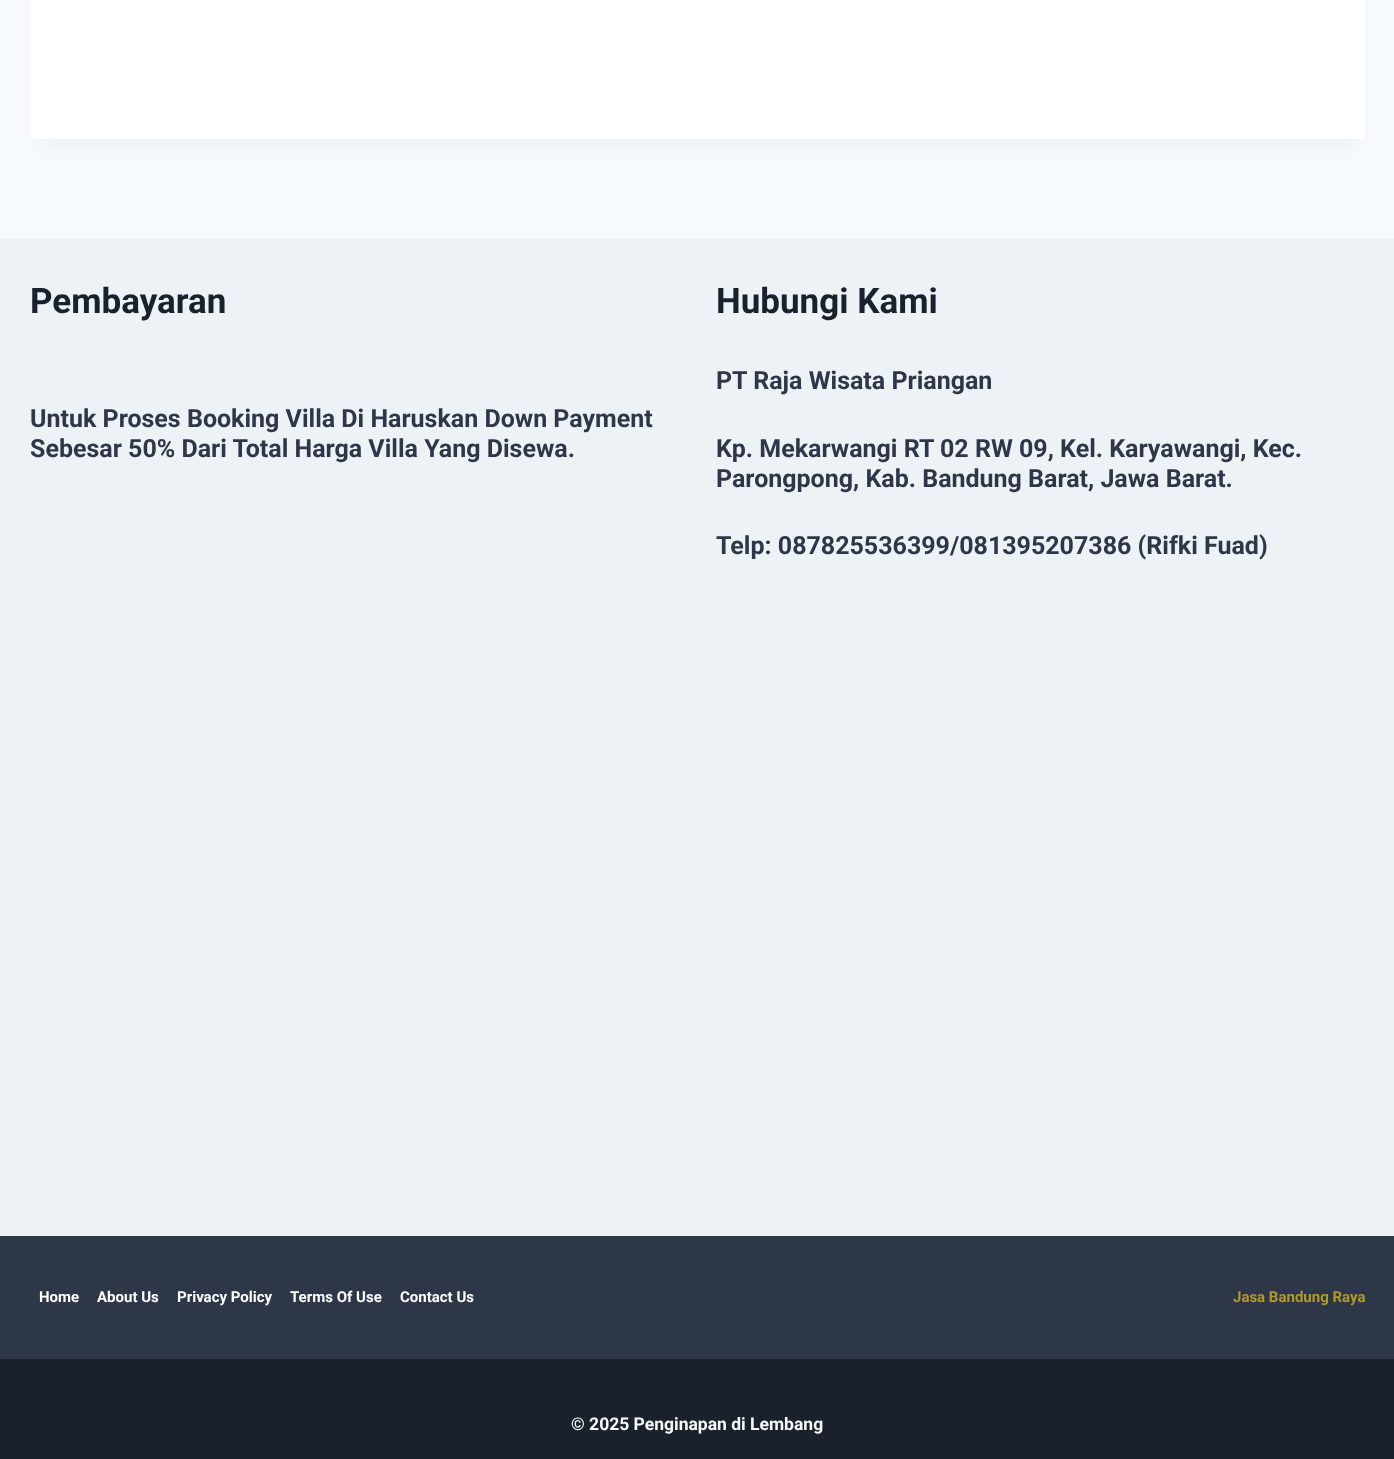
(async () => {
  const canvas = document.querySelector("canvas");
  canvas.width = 1394;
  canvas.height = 1459;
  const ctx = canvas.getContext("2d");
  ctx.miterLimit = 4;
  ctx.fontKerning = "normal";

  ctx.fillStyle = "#f7fafc";
  ctx.fillRect(0, 0, 1394, 1459);
  ctx.fillStyle = "rgba(0, 0, 0, 0.05)";
  ctx.filter = "blur(9.5px)";
  ctx.beginPath();
  ctx.rect(43, -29, 1310, 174);
  ctx.fill();
  ctx.filter = "none";
  ctx.fillStyle = "#ffffff";
  ctx.beginPath();
  ctx.roundRect(30, -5, 1335, 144, 5);
  ctx.fill();
  for (const [x, y, w, h, color] of [
    [0, 239, 1394, 997, "#edf2f7"],
    [0, 1236, 1394, 123, "#2d3748"],
    [0, 1359, 1394, 100, "#1a202c"],
  ]) {
    ctx.fillStyle = color;
    ctx.fillRect(x, y, w, h);
  }
  ctx.font = "bold 35px Roboto";
  ctx.fillText("Pembayaran", 30, 313);
  ctx.font = "bold 25px Roboto";
  ctx.fillStyle = "#2d3748";
  ctx.fillText("Untuk Proses Booking Villa Di Haruskan Down Payment", 30, 427);
  ctx.fillText("Sebesar 50% Dari Total Harga Villa Yang Disewa.", 30, 457);
  ctx.font = "bold 35px Roboto";
  ctx.fillStyle = "#1a202c";
  ctx.fillText("Hubungi Kami", 716, 313);
  ctx.font = "bold 25px Roboto";
  ctx.fillStyle = "#2d3748";
  for (const [text, x, y] of [
    ["PT Raja Wisata Priangan", 716, 389],
    ["Kp. Mekarwangi RT 02 RW 09, Kel. Karyawangi, Kec.", 716, 457],
    ["Parongpong, Kab. Bandung Barat, Jawa Barat.", 716, 487],
    ["Telp: 087825536399/081395207386 (Rifki Fuad)", 716, 554],
  ]) {
    ctx.fillText(text, x, y);
  }
  ctx.font = "bold 15px Roboto";
  ctx.fillStyle = "#ffffff";
  for (const [text, x, y] of [
    ["Home", 39, 1302],
    ["About Us", 97, 1302],
    ["Privacy Policy", 177, 1302],
    ["Terms Of Use", 290, 1302],
    ["Contact Us", 400, 1302],
  ]) {
    ctx.fillText(text, x, y);
  }
  ctx.fillStyle = "#b0982a";
  ctx.fillText("Jasa Bandung Raya", 1233, 1302);
  ctx.font = "bold 17.5px Roboto";
  ctx.fillStyle = "#f7fafc";
  ctx.fillText("© 2025 Penginapan di Lembang", 571, 1430);
})();
